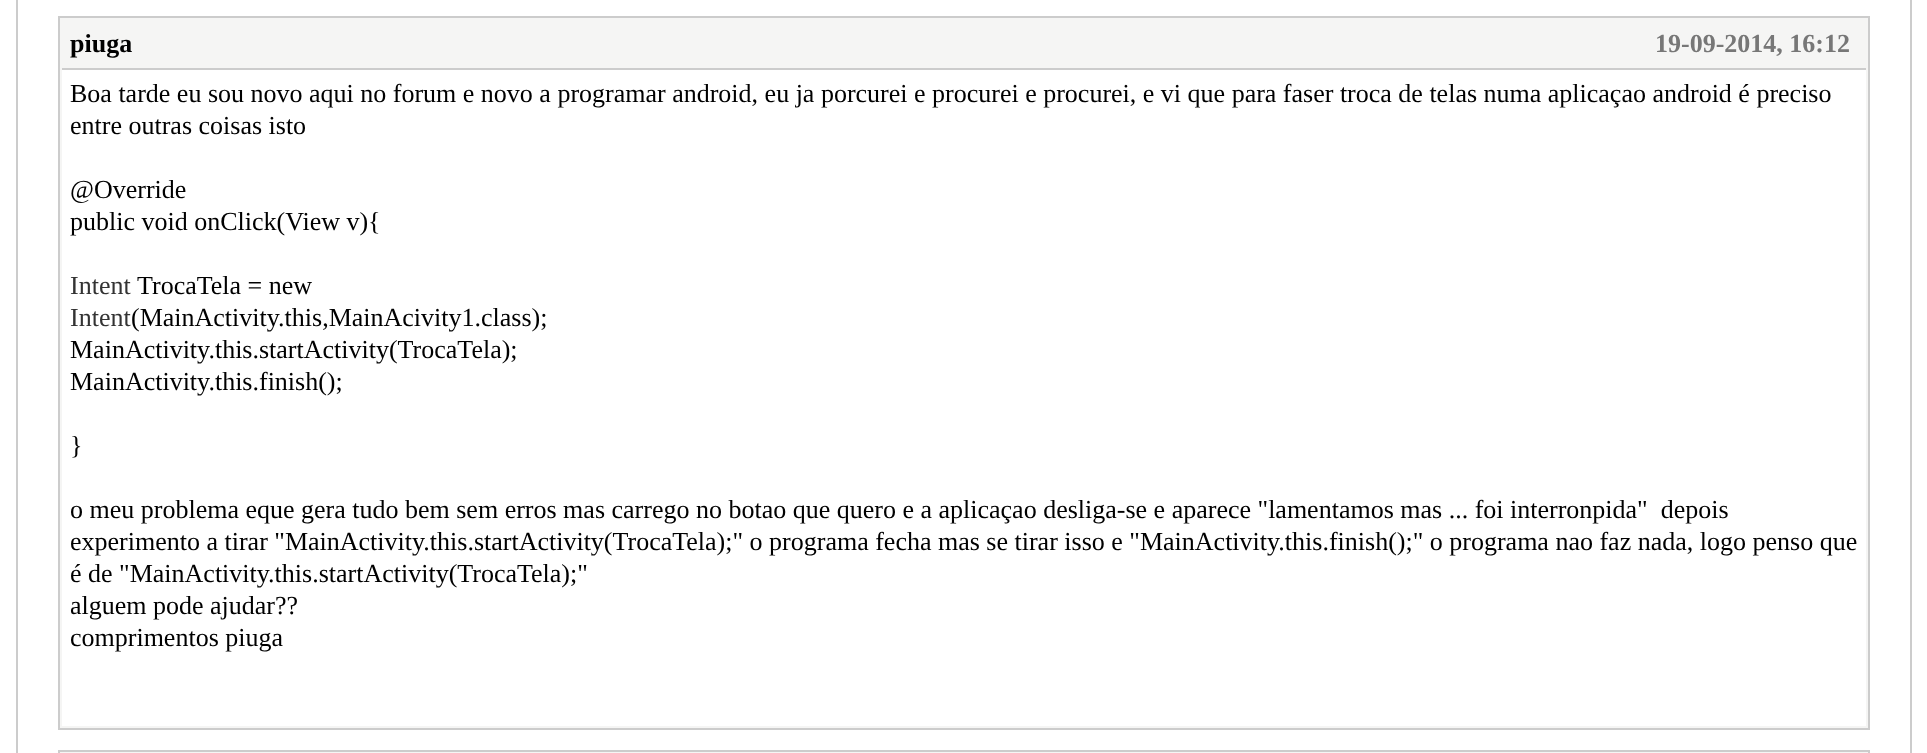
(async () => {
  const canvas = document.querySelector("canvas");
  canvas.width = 1927;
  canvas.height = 753;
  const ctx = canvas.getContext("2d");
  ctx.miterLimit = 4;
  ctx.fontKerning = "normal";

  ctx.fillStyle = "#ffffff";
  ctx.fillRect(0, 0, 1927, 753);
  ctx.strokeStyle = "#cccccc";
  ctx.lineWidth = 2;
  ctx.strokeRect(17, -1, 1894, 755);
  ctx.fillStyle = "#f5f5f4";
  ctx.beginPath();
  ctx.rect(59, 17, 1810, 712);
  ctx.fill();
  ctx.stroke();
  ctx.fillStyle = "#cccccc";
  ctx.fillRect(62, 68, 1804, 2);
  ctx.fillStyle = "#ffffff";
  ctx.fillRect(62, 70, 1804, 656);
  ctx.fillStyle = "#f5f5f4";
  ctx.beginPath();
  ctx.rect(59, 751, 1810, 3);
  ctx.fill();
  ctx.stroke();
  ctx.font = "bold 26px Liberation Serif";
  ctx.fillStyle = "#000000";
  ctx.fillText("piuga", 70, 52);
  ctx.fillStyle = "#777777";
  ctx.fillText("19-09-2014, 16:12", 1655, 52);
  ctx.font = "26px Liberation Serif";
  ctx.fillStyle = "#000000";
  for (const [text, x, y] of [
    ["Boa tarde eu sou novo aqui no forum e novo a programar android, eu ja porcurei e procurei e procurei, e vi que para faser troca de telas numa aplicaçao android é preciso", 70, 102],
    ["entre outras coisas isto", 70, 134],
    ["@Override", 70, 198],
    ["public void onClick(View v){", 70, 230],
  ]) {
    ctx.fillText(text, x, y);
  }
  ctx.fillStyle = "#333333";
  ctx.fillText("Intent", 70, 294);
  ctx.fillStyle = "#000000";
  ctx.fillText("TrocaTela = new", 137, 294);
  ctx.fillStyle = "#333333";
  ctx.fillText("Intent", 70, 326);
  ctx.fillStyle = "#000000";
  for (const [text, x, y] of [
    ["(MainActivity.this,MainAcivity1.class);", 131, 326],
    ["MainActivity.this.startActivity(TrocaTela);", 70, 358],
    ["MainActivity.this.finish();", 70, 390],
    ["}", 70, 454],
    ["o meu problema eque gera tudo bem sem erros mas carrego no botao que quero e a aplicaçao desliga-se e aparece \"lamentamos mas ... foi interronpida\"  depois", 70, 518],
    ["experimento a tirar \"MainActivity.this.startActivity(TrocaTela);\" o programa fecha mas se tirar isso e \"MainActivity.this.finish();\" o programa nao faz nada, logo penso que", 70, 550],
    ["é de \"MainActivity.this.startActivity(TrocaTela);\"", 70, 582],
    ["alguem pode ajudar??", 70, 614],
    ["comprimentos piuga", 70, 646],
  ]) {
    ctx.fillText(text, x, y);
  }
})();
